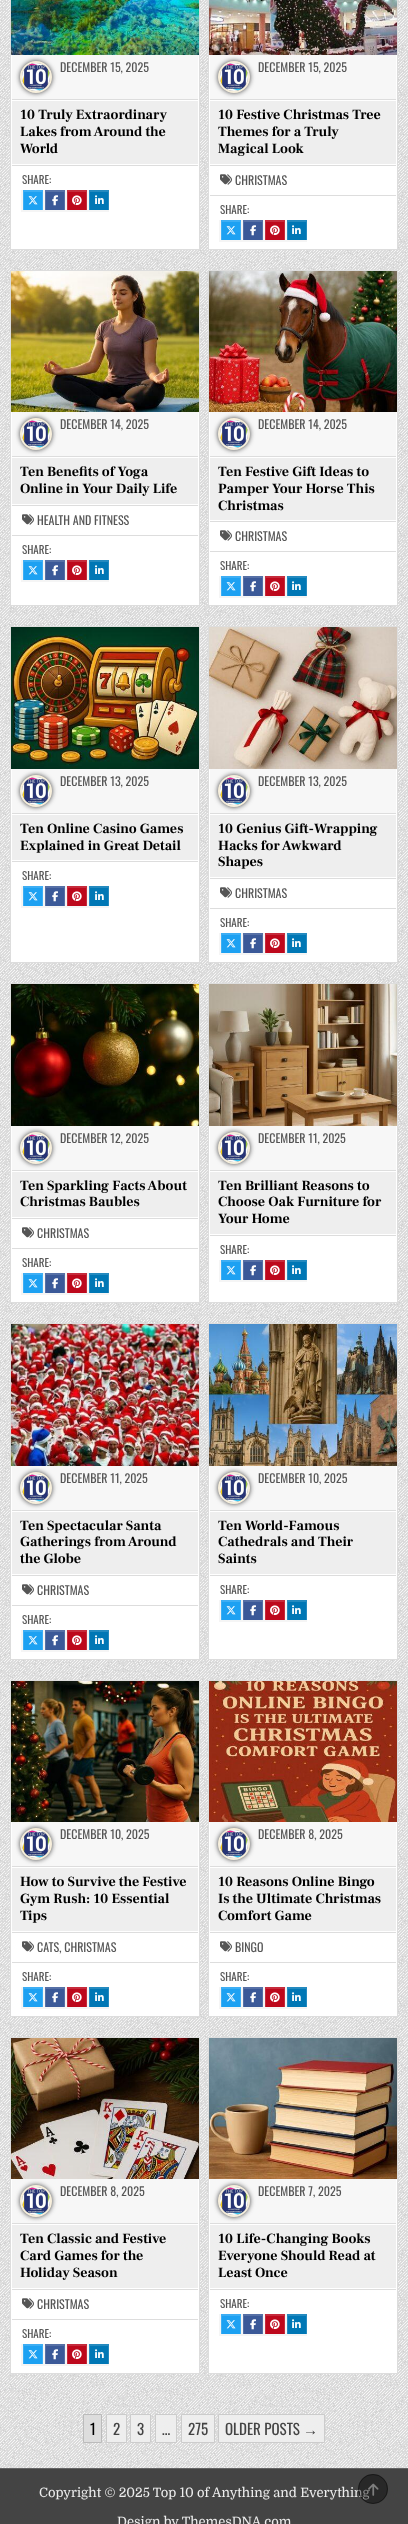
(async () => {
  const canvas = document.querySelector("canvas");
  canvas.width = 408;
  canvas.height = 2524;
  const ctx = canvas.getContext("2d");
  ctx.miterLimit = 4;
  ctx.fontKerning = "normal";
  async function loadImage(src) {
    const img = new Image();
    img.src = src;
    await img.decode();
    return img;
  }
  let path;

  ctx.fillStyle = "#ffffff";
  ctx.fillRect(0, 0, 408, 2524);
  ctx.drawImage(await loadImage("img/1.png"), 0, 0, 408, 2468);
  ctx.fillRect(11, 55, 188, 194);
  ctx.strokeStyle = "#dddddd";
  ctx.strokeRect(10.5, -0.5, 189, 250);
  ctx.drawImage(await loadImage("img/2.png"), 11, 0, 188, 55);
  for (const [x, y, w, h, color] of [
    [12, 55, 186, 44, "#f7f7f7"],
    [12, 101, 186, 63, "#eeeeee"],
    [12, 99, 186, 1, "#dddddd"],
  ]) {
    ctx.fillStyle = color;
    ctx.fillRect(x, y, w, h);
  }
  ctx.fillStyle = "#444444";
  ctx.filter = "blur(2.5px)";
  ctx.beginPath();
  ctx.roundRect(20, 61, 32, 32, 16);
  ctx.fill();
  ctx.filter = "none";
  ctx.beginPath();
  ctx.arc(36, 77, 15, 0, Math.PI * 2);
  ctx.strokeStyle = "#f7efdc";
  ctx.lineWidth = 2;
  ctx.stroke();
  ctx.drawImage(await loadImage("img/3.png"), 22, 63, 28, 28);
  ctx.fillStyle = "#dddddd";
  ctx.fillRect(12, 165, 186, 1);
  ctx.fillStyle = "#f5f5f5";
  path = new Path2D("M21 190V212H43V210H23V190Z");
  ctx.fill(path);
  ctx.fillStyle = "#1da1f2";
  ctx.fillRect(24, 192, 18, 18);
  ctx.save();
  ctx.beginPath();
  ctx.rect(23, 190, 20, 20);
  ctx.clip();
  ctx.fillStyle = "#3daef4";
  path = new Path2D("M-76 91H142V309H-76ZM24 192H42V210H24Z");
  ctx.fill(path, "evenodd");
  ctx.restore();
  ctx.drawImage(await loadImage("img/4.png"), 28, 196, 10, 9);
  ctx.fillStyle = "#f5f5f5";
  path = new Path2D("M43 190V212H65V210H45V190Z");
  ctx.fill(path);
  ctx.fillStyle = "#3b5998";
  ctx.fillRect(46, 192, 18, 18);
  ctx.save();
  ctx.beginPath();
  ctx.rect(45, 190, 20, 20);
  ctx.clip();
  ctx.fillStyle = "#5670a6";
  path = new Path2D("M-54 91H164V309H-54ZM46 192H64V210H46Z");
  ctx.fill(path, "evenodd");
  ctx.restore();
  ctx.drawImage(await loadImage("img/5.png"), 52, 195, 6, 11);
  ctx.fillStyle = "#f5f5f5";
  path = new Path2D("M65 190V212H87V210H67V190Z");
  ctx.fill(path);
  ctx.fillStyle = "#bd081c";
  ctx.fillRect(68, 192, 18, 18);
  ctx.save();
  ctx.beginPath();
  ctx.rect(67, 190, 20, 20);
  ctx.clip();
  ctx.fillStyle = "#c62b3c";
  path = new Path2D("M-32 91H186V309H-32ZM68 192H86V210H68Z");
  ctx.fill(path, "evenodd");
  ctx.restore();
  ctx.drawImage(await loadImage("img/6.png"), 72, 195, 10, 11);
  ctx.fillStyle = "#f5f5f5";
  path = new Path2D("M87 190V212H109V210H89V190Z");
  ctx.fill(path);
  ctx.fillStyle = "#0077b5";
  ctx.fillRect(90, 192, 18, 18);
  ctx.save();
  ctx.beginPath();
  ctx.rect(89, 190, 20, 20);
  ctx.clip();
  ctx.fillStyle = "#248abf";
  path = new Path2D("M-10 91H208V309H-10ZM90 192H108V210H90Z");
  ctx.fill(path, "evenodd");
  ctx.restore();
  ctx.drawImage(await loadImage("img/7.png"), 95, 195, 9, 9);
  ctx.fillStyle = "#ffffff";
  ctx.fillRect(209, 55, 188, 194);
  ctx.strokeStyle = "#dddddd";
  ctx.lineWidth = 1;
  ctx.strokeRect(208.5, -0.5, 189, 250);
  ctx.drawImage(await loadImage("img/8.png"), 209, 0, 188, 55);
  for (const [x, y, w, h, color] of [
    [210, 55, 186, 44, "#f7f7f7"],
    [210, 101, 186, 63, "#eeeeee"],
    [210, 99, 186, 1, "#dddddd"],
  ]) {
    ctx.fillStyle = color;
    ctx.fillRect(x, y, w, h);
  }
  ctx.fillStyle = "#444444";
  ctx.filter = "blur(2.5px)";
  ctx.beginPath();
  ctx.roundRect(218, 61, 32, 32, 16);
  ctx.fill();
  ctx.filter = "none";
  ctx.beginPath();
  ctx.arc(234, 77, 15, 0, Math.PI * 2);
  ctx.strokeStyle = "#f7efdc";
  ctx.lineWidth = 2;
  ctx.stroke();
  ctx.drawImage(await loadImage("img/3.png"), 220, 63, 28, 28);
  ctx.fillStyle = "#dddddd";
  ctx.fillRect(210, 165, 186, 1);
  ctx.fillRect(210, 195, 186, 1);
  ctx.drawImage(await loadImage("img/9.png"), 220, 174, 12, 11);
  ctx.fillStyle = "#f5f5f5";
  path = new Path2D("M219 220V242H241V240H221V220Z");
  ctx.fill(path);
  ctx.fillStyle = "#1da1f2";
  ctx.fillRect(222, 222, 18, 18);
  ctx.save();
  ctx.beginPath();
  ctx.rect(221, 220, 20, 20);
  ctx.clip();
  ctx.fillStyle = "#3daef4";
  path = new Path2D("M122 121H340V339H122ZM222 222H240V240H222Z");
  ctx.fill(path, "evenodd");
  ctx.restore();
  ctx.drawImage(await loadImage("img/4.png"), 226, 226, 10, 9);
  ctx.fillStyle = "#f5f5f5";
  path = new Path2D("M241 220V242H263V240H243V220Z");
  ctx.fill(path);
  ctx.fillStyle = "#3b5998";
  ctx.fillRect(244, 222, 18, 18);
  ctx.save();
  ctx.beginPath();
  ctx.rect(243, 220, 20, 20);
  ctx.clip();
  ctx.fillStyle = "#5670a6";
  path = new Path2D("M144 121H362V339H144ZM244 222H262V240H244Z");
  ctx.fill(path, "evenodd");
  ctx.restore();
  ctx.drawImage(await loadImage("img/5.png"), 250, 225, 6, 11);
  ctx.fillStyle = "#f5f5f5";
  path = new Path2D("M263 220V242H285V240H265V220Z");
  ctx.fill(path);
  ctx.fillStyle = "#bd081c";
  ctx.fillRect(266, 222, 18, 18);
  ctx.save();
  ctx.beginPath();
  ctx.rect(265, 220, 20, 20);
  ctx.clip();
  ctx.fillStyle = "#c62b3c";
  path = new Path2D("M166 121H384V339H166ZM266 222H284V240H266Z");
  ctx.fill(path, "evenodd");
  ctx.restore();
  ctx.drawImage(await loadImage("img/6.png"), 270, 225, 10, 11);
  ctx.fillStyle = "#f5f5f5";
  path = new Path2D("M285 220V242H307V240H287V220Z");
  ctx.fill(path);
  ctx.fillStyle = "#0077b5";
  ctx.fillRect(288, 222, 18, 18);
  ctx.save();
  ctx.beginPath();
  ctx.rect(287, 220, 20, 20);
  ctx.clip();
  ctx.fillStyle = "#248abf";
  path = new Path2D("M188 121H406V339H188ZM288 222H306V240H288Z");
  ctx.fill(path, "evenodd");
  ctx.restore();
  ctx.drawImage(await loadImage("img/7.png"), 292, 225, 9, 9);
  ctx.fillStyle = "#ffffff";
  ctx.fillRect(11, 412, 188, 193);
  ctx.strokeStyle = "#dddddd";
  ctx.lineWidth = 1;
  ctx.strokeRect(10.5, 270.5, 189, 335);
  ctx.drawImage(await loadImage("img/10.png"), 11, 271, 188, 141);
  for (const [x, y, w, h, color] of [
    [12, 412, 186, 44, "#f7f7f7"],
    [12, 458, 186, 46, "#eeeeee"],
    [12, 456, 186, 1, "#dddddd"],
  ]) {
    ctx.fillStyle = color;
    ctx.fillRect(x, y, w, h);
  }
  ctx.fillStyle = "#444444";
  ctx.filter = "blur(2.5px)";
  ctx.beginPath();
  ctx.roundRect(20, 418, 32, 32, 16);
  ctx.fill();
  ctx.filter = "none";
  ctx.beginPath();
  ctx.arc(36, 434, 15, 0, Math.PI * 2);
  ctx.strokeStyle = "#f7efdc";
  ctx.lineWidth = 2;
  ctx.stroke();
  ctx.drawImage(await loadImage("img/3.png"), 22, 420, 28, 28);
  ctx.fillStyle = "#dddddd";
  ctx.fillRect(12, 505, 186, 1);
  ctx.fillRect(12, 535, 186, 1);
  ctx.drawImage(await loadImage("img/9.png"), 22, 514, 12, 11);
  ctx.fillStyle = "#f5f5f5";
  path = new Path2D("M21 560V582H43V580H23V560Z");
  ctx.fill(path);
  ctx.fillStyle = "#1da1f2";
  ctx.fillRect(24, 562, 18, 18);
  ctx.save();
  ctx.beginPath();
  ctx.rect(23, 560, 20, 20);
  ctx.clip();
  ctx.fillStyle = "#3daef4";
  path = new Path2D("M-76 461H142V679H-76ZM24 562H42V580H24Z");
  ctx.fill(path, "evenodd");
  ctx.restore();
  ctx.drawImage(await loadImage("img/4.png"), 28, 566, 10, 9);
  ctx.fillStyle = "#f5f5f5";
  path = new Path2D("M43 560V582H65V580H45V560Z");
  ctx.fill(path);
  ctx.fillStyle = "#3b5998";
  ctx.fillRect(46, 562, 18, 18);
  ctx.save();
  ctx.beginPath();
  ctx.rect(45, 560, 20, 20);
  ctx.clip();
  ctx.fillStyle = "#5670a6";
  path = new Path2D("M-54 461H164V679H-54ZM46 562H64V580H46Z");
  ctx.fill(path, "evenodd");
  ctx.restore();
  ctx.drawImage(await loadImage("img/5.png"), 52, 565, 6, 11);
  ctx.fillStyle = "#f5f5f5";
  path = new Path2D("M65 560V582H87V580H67V560Z");
  ctx.fill(path);
  ctx.fillStyle = "#bd081c";
  ctx.fillRect(68, 562, 18, 18);
  ctx.save();
  ctx.beginPath();
  ctx.rect(67, 560, 20, 20);
  ctx.clip();
  ctx.fillStyle = "#c62b3c";
  path = new Path2D("M-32 461H186V679H-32ZM68 562H86V580H68Z");
  ctx.fill(path, "evenodd");
  ctx.restore();
  ctx.drawImage(await loadImage("img/6.png"), 72, 565, 10, 11);
  ctx.fillStyle = "#f5f5f5";
  path = new Path2D("M87 560V582H109V580H89V560Z");
  ctx.fill(path);
  ctx.fillStyle = "#0077b5";
  ctx.fillRect(90, 562, 18, 18);
  ctx.save();
  ctx.beginPath();
  ctx.rect(89, 560, 20, 20);
  ctx.clip();
  ctx.fillStyle = "#248abf";
  path = new Path2D("M-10 461H208V679H-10ZM90 562H108V580H90Z");
  ctx.fill(path, "evenodd");
  ctx.restore();
  ctx.drawImage(await loadImage("img/7.png"), 95, 565, 9, 9);
  ctx.fillStyle = "#ffffff";
  ctx.fillRect(209, 412, 188, 193);
  ctx.strokeStyle = "#dddddd";
  ctx.lineWidth = 1;
  ctx.strokeRect(208.5, 270.5, 189, 335);
  ctx.drawImage(await loadImage("img/11.png"), 209, 271, 188, 141);
  for (const [x, y, w, h, color] of [
    [210, 412, 186, 44, "#f7f7f7"],
    [210, 458, 186, 62, "#eeeeee"],
    [210, 456, 186, 1, "#dddddd"],
  ]) {
    ctx.fillStyle = color;
    ctx.fillRect(x, y, w, h);
  }
  ctx.fillStyle = "#444444";
  ctx.filter = "blur(2.5px)";
  ctx.beginPath();
  ctx.roundRect(218, 418, 32, 32, 16);
  ctx.fill();
  ctx.filter = "none";
  ctx.beginPath();
  ctx.arc(234, 434, 15, 0, Math.PI * 2);
  ctx.strokeStyle = "#f7efdc";
  ctx.lineWidth = 2;
  ctx.stroke();
  ctx.drawImage(await loadImage("img/3.png"), 220, 420, 28, 28);
  ctx.fillStyle = "#dddddd";
  ctx.fillRect(210, 521, 186, 1);
  ctx.fillRect(210, 551, 186, 1);
  ctx.drawImage(await loadImage("img/9.png"), 220, 530, 12, 11);
  ctx.fillStyle = "#f5f5f5";
  path = new Path2D("M219 576V598H241V596H221V576Z");
  ctx.fill(path);
  ctx.fillStyle = "#1da1f2";
  ctx.fillRect(222, 578, 18, 18);
  ctx.save();
  ctx.beginPath();
  ctx.rect(221, 576, 20, 20);
  ctx.clip();
  ctx.fillStyle = "#3daef4";
  path = new Path2D("M122 477H340V695H122ZM222 578H240V596H222Z");
  ctx.fill(path, "evenodd");
  ctx.restore();
  ctx.drawImage(await loadImage("img/4.png"), 226, 582, 10, 9);
  ctx.fillStyle = "#f5f5f5";
  path = new Path2D("M241 576V598H263V596H243V576Z");
  ctx.fill(path);
  ctx.fillStyle = "#3b5998";
  ctx.fillRect(244, 578, 18, 18);
  ctx.save();
  ctx.beginPath();
  ctx.rect(243, 576, 20, 20);
  ctx.clip();
  ctx.fillStyle = "#5670a6";
  path = new Path2D("M144 477H362V695H144ZM244 578H262V596H244Z");
  ctx.fill(path, "evenodd");
  ctx.restore();
  ctx.drawImage(await loadImage("img/5.png"), 250, 581, 6, 11);
  ctx.fillStyle = "#f5f5f5";
  path = new Path2D("M263 576V598H285V596H265V576Z");
  ctx.fill(path);
  ctx.fillStyle = "#bd081c";
  ctx.fillRect(266, 578, 18, 18);
  ctx.save();
  ctx.beginPath();
  ctx.rect(265, 576, 20, 20);
  ctx.clip();
  ctx.fillStyle = "#c62b3c";
  path = new Path2D("M166 477H384V695H166ZM266 578H284V596H266Z");
  ctx.fill(path, "evenodd");
  ctx.restore();
  ctx.drawImage(await loadImage("img/6.png"), 270, 581, 10, 11);
  ctx.fillStyle = "#f5f5f5";
  path = new Path2D("M285 576V598H307V596H287V576Z");
  ctx.fill(path);
  ctx.fillStyle = "#0077b5";
  ctx.fillRect(288, 578, 18, 18);
  ctx.save();
  ctx.beginPath();
  ctx.rect(287, 576, 20, 20);
  ctx.clip();
  ctx.fillStyle = "#248abf";
  path = new Path2D("M188 477H406V695H188ZM288 578H306V596H288Z");
  ctx.fill(path, "evenodd");
  ctx.restore();
  ctx.drawImage(await loadImage("img/7.png"), 292, 581, 9, 9);
  ctx.fillStyle = "#ffffff";
  ctx.fillRect(11, 769, 188, 193);
  ctx.strokeStyle = "#dddddd";
  ctx.lineWidth = 1;
  ctx.strokeRect(10.5, 626.5, 189, 336);
  ctx.drawImage(await loadImage("img/12.png"), 11, 627, 188, 142);
  for (const [x, y, w, h, color] of [
    [12, 769, 186, 44, "#f7f7f7"],
    [12, 815, 186, 45, "#eeeeee"],
    [12, 813, 186, 1, "#dddddd"],
  ]) {
    ctx.fillStyle = color;
    ctx.fillRect(x, y, w, h);
  }
  ctx.fillStyle = "#444444";
  ctx.filter = "blur(2.5px)";
  ctx.beginPath();
  ctx.roundRect(20, 775, 32, 32, 16);
  ctx.fill();
  ctx.filter = "none";
  ctx.beginPath();
  ctx.arc(36, 791, 15, 0, Math.PI * 2);
  ctx.strokeStyle = "#f7efdc";
  ctx.lineWidth = 2;
  ctx.stroke();
  ctx.drawImage(await loadImage("img/3.png"), 22, 777, 28, 28);
  ctx.fillStyle = "#dddddd";
  ctx.fillRect(12, 861, 186, 1);
  ctx.fillStyle = "#f5f5f5";
  path = new Path2D("M21 886V908H43V906H23V886Z");
  ctx.fill(path);
  ctx.fillStyle = "#1da1f2";
  ctx.fillRect(24, 888, 18, 18);
  ctx.save();
  ctx.beginPath();
  ctx.rect(23, 886, 20, 20);
  ctx.clip();
  ctx.fillStyle = "#3daef4";
  path = new Path2D("M-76 787H142V1005H-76ZM24 888H42V906H24Z");
  ctx.fill(path, "evenodd");
  ctx.restore();
  ctx.drawImage(await loadImage("img/4.png"), 28, 892, 10, 9);
  ctx.fillStyle = "#f5f5f5";
  path = new Path2D("M43 886V908H65V906H45V886Z");
  ctx.fill(path);
  ctx.fillStyle = "#3b5998";
  ctx.fillRect(46, 888, 18, 18);
  ctx.save();
  ctx.beginPath();
  ctx.rect(45, 886, 20, 20);
  ctx.clip();
  ctx.fillStyle = "#5670a6";
  path = new Path2D("M-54 787H164V1005H-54ZM46 888H64V906H46Z");
  ctx.fill(path, "evenodd");
  ctx.restore();
  ctx.drawImage(await loadImage("img/5.png"), 52, 891, 6, 11);
  ctx.fillStyle = "#f5f5f5";
  path = new Path2D("M65 886V908H87V906H67V886Z");
  ctx.fill(path);
  ctx.fillStyle = "#bd081c";
  ctx.fillRect(68, 888, 18, 18);
  ctx.save();
  ctx.beginPath();
  ctx.rect(67, 886, 20, 20);
  ctx.clip();
  ctx.fillStyle = "#c62b3c";
  path = new Path2D("M-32 787H186V1005H-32ZM68 888H86V906H68Z");
  ctx.fill(path, "evenodd");
  ctx.restore();
  ctx.drawImage(await loadImage("img/6.png"), 72, 891, 10, 11);
  ctx.fillStyle = "#f5f5f5";
  path = new Path2D("M87 886V908H109V906H89V886Z");
  ctx.fill(path);
  ctx.fillStyle = "#0077b5";
  ctx.fillRect(90, 888, 18, 18);
  ctx.save();
  ctx.beginPath();
  ctx.rect(89, 886, 20, 20);
  ctx.clip();
  ctx.fillStyle = "#248abf";
  path = new Path2D("M-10 787H208V1005H-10ZM90 888H108V906H90Z");
  ctx.fill(path, "evenodd");
  ctx.restore();
  ctx.drawImage(await loadImage("img/7.png"), 95, 891, 9, 9);
  ctx.fillStyle = "#ffffff";
  ctx.fillRect(209, 769, 188, 193);
  ctx.strokeStyle = "#dddddd";
  ctx.lineWidth = 1;
  ctx.strokeRect(208.5, 626.5, 189, 336);
  ctx.drawImage(await loadImage("img/13.png"), 209, 627, 188, 142);
  for (const [x, y, w, h, color] of [
    [210, 769, 186, 44, "#f7f7f7"],
    [210, 815, 186, 62, "#eeeeee"],
    [210, 813, 186, 1, "#dddddd"],
  ]) {
    ctx.fillStyle = color;
    ctx.fillRect(x, y, w, h);
  }
  ctx.fillStyle = "#444444";
  ctx.filter = "blur(2.5px)";
  ctx.beginPath();
  ctx.roundRect(218, 775, 32, 32, 16);
  ctx.fill();
  ctx.filter = "none";
  ctx.beginPath();
  ctx.arc(234, 791, 15, 0, Math.PI * 2);
  ctx.strokeStyle = "#f7efdc";
  ctx.lineWidth = 2;
  ctx.stroke();
  ctx.drawImage(await loadImage("img/3.png"), 220, 777, 28, 28);
  ctx.fillStyle = "#dddddd";
  ctx.fillRect(210, 878, 186, 1);
  ctx.fillRect(210, 908, 186, 1);
  ctx.drawImage(await loadImage("img/9.png"), 220, 887, 12, 11);
  ctx.fillStyle = "#f5f5f5";
  path = new Path2D("M219 933V955H241V953H221V933Z");
  ctx.fill(path);
  ctx.fillStyle = "#1da1f2";
  ctx.fillRect(222, 935, 18, 18);
  ctx.save();
  ctx.beginPath();
  ctx.rect(221, 933, 20, 20);
  ctx.clip();
  ctx.fillStyle = "#3daef4";
  path = new Path2D("M122 834H340V1052H122ZM222 935H240V953H222Z");
  ctx.fill(path, "evenodd");
  ctx.restore();
  ctx.drawImage(await loadImage("img/4.png"), 226, 939, 10, 9);
  ctx.fillStyle = "#f5f5f5";
  path = new Path2D("M241 933V955H263V953H243V933Z");
  ctx.fill(path);
  ctx.fillStyle = "#3b5998";
  ctx.fillRect(244, 935, 18, 18);
  ctx.save();
  ctx.beginPath();
  ctx.rect(243, 933, 20, 20);
  ctx.clip();
  ctx.fillStyle = "#5670a6";
  path = new Path2D("M144 834H362V1052H144ZM244 935H262V953H244Z");
  ctx.fill(path, "evenodd");
  ctx.restore();
  ctx.drawImage(await loadImage("img/5.png"), 250, 938, 6, 11);
  ctx.fillStyle = "#f5f5f5";
  path = new Path2D("M263 933V955H285V953H265V933Z");
  ctx.fill(path);
  ctx.fillStyle = "#bd081c";
  ctx.fillRect(266, 935, 18, 18);
  ctx.save();
  ctx.beginPath();
  ctx.rect(265, 933, 20, 20);
  ctx.clip();
  ctx.fillStyle = "#c62b3c";
  path = new Path2D("M166 834H384V1052H166ZM266 935H284V953H266Z");
  ctx.fill(path, "evenodd");
  ctx.restore();
  ctx.drawImage(await loadImage("img/6.png"), 270, 938, 10, 11);
  ctx.fillStyle = "#f5f5f5";
  path = new Path2D("M285 933V955H307V953H287V933Z");
  ctx.fill(path);
  ctx.fillStyle = "#0077b5";
  ctx.fillRect(288, 935, 18, 18);
  ctx.save();
  ctx.beginPath();
  ctx.rect(287, 933, 20, 20);
  ctx.clip();
  ctx.fillStyle = "#248abf";
  path = new Path2D("M188 834H406V1052H188ZM288 935H306V953H288Z");
  ctx.fill(path, "evenodd");
  ctx.restore();
  ctx.drawImage(await loadImage("img/7.png"), 292, 938, 9, 9);
  ctx.fillStyle = "#ffffff";
  ctx.fillRect(11, 1126, 188, 176);
  ctx.strokeStyle = "#dddddd";
  ctx.lineWidth = 1;
  ctx.strokeRect(10.5, 983.5, 189, 319);
  ctx.drawImage(await loadImage("img/14.png"), 11, 984, 188, 142);
  for (const [x, y, w, h, color] of [
    [12, 1126, 186, 44, "#f7f7f7"],
    [12, 1172, 186, 45, "#eeeeee"],
    [12, 1170, 186, 1, "#dddddd"],
  ]) {
    ctx.fillStyle = color;
    ctx.fillRect(x, y, w, h);
  }
  ctx.fillStyle = "#444444";
  ctx.filter = "blur(2.5px)";
  ctx.beginPath();
  ctx.roundRect(20, 1132, 32, 32, 16);
  ctx.fill();
  ctx.filter = "none";
  ctx.beginPath();
  ctx.arc(36, 1148, 15, 0, Math.PI * 2);
  ctx.strokeStyle = "#f7efdc";
  ctx.lineWidth = 2;
  ctx.stroke();
  ctx.drawImage(await loadImage("img/3.png"), 22, 1134, 28, 28);
  ctx.fillStyle = "#dddddd";
  ctx.fillRect(12, 1218, 186, 1);
  ctx.fillRect(12, 1248, 186, 1);
  ctx.drawImage(await loadImage("img/9.png"), 22, 1227, 12, 11);
  ctx.fillStyle = "#f5f5f5";
  path = new Path2D("M21 1273V1295H43V1293H23V1273Z");
  ctx.fill(path);
  ctx.fillStyle = "#1da1f2";
  ctx.fillRect(24, 1275, 18, 18);
  ctx.save();
  ctx.beginPath();
  ctx.rect(23, 1273, 20, 20);
  ctx.clip();
  ctx.fillStyle = "#3daef4";
  path = new Path2D("M-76 1174H142V1392H-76ZM24 1275H42V1293H24Z");
  ctx.fill(path, "evenodd");
  ctx.restore();
  ctx.drawImage(await loadImage("img/4.png"), 28, 1279, 10, 9);
  ctx.fillStyle = "#f5f5f5";
  path = new Path2D("M43 1273V1295H65V1293H45V1273Z");
  ctx.fill(path);
  ctx.fillStyle = "#3b5998";
  ctx.fillRect(46, 1275, 18, 18);
  ctx.save();
  ctx.beginPath();
  ctx.rect(45, 1273, 20, 20);
  ctx.clip();
  ctx.fillStyle = "#5670a6";
  path = new Path2D("M-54 1174H164V1392H-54ZM46 1275H64V1293H46Z");
  ctx.fill(path, "evenodd");
  ctx.restore();
  ctx.drawImage(await loadImage("img/5.png"), 52, 1278, 6, 11);
  ctx.fillStyle = "#f5f5f5";
  path = new Path2D("M65 1273V1295H87V1293H67V1273Z");
  ctx.fill(path);
  ctx.fillStyle = "#bd081c";
  ctx.fillRect(68, 1275, 18, 18);
  ctx.save();
  ctx.beginPath();
  ctx.rect(67, 1273, 20, 20);
  ctx.clip();
  ctx.fillStyle = "#c62b3c";
  path = new Path2D("M-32 1174H186V1392H-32ZM68 1275H86V1293H68Z");
  ctx.fill(path, "evenodd");
  ctx.restore();
  ctx.drawImage(await loadImage("img/6.png"), 72, 1278, 10, 11);
  ctx.fillStyle = "#f5f5f5";
  path = new Path2D("M87 1273V1295H109V1293H89V1273Z");
  ctx.fill(path);
  ctx.fillStyle = "#0077b5";
  ctx.fillRect(90, 1275, 18, 18);
  ctx.save();
  ctx.beginPath();
  ctx.rect(89, 1273, 20, 20);
  ctx.clip();
  ctx.fillStyle = "#248abf";
  path = new Path2D("M-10 1174H208V1392H-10ZM90 1275H108V1293H90Z");
  ctx.fill(path, "evenodd");
  ctx.restore();
  ctx.drawImage(await loadImage("img/7.png"), 95, 1278, 9, 9);
  ctx.fillStyle = "#ffffff";
  ctx.fillRect(209, 1126, 188, 176);
  ctx.strokeStyle = "#dddddd";
  ctx.lineWidth = 1;
  ctx.strokeRect(208.5, 983.5, 189, 319);
  ctx.drawImage(await loadImage("img/15.png"), 209, 984, 188, 142);
  for (const [x, y, w, h, color] of [
    [210, 1126, 186, 44, "#f7f7f7"],
    [210, 1172, 186, 62, "#eeeeee"],
    [210, 1170, 186, 1, "#dddddd"],
  ]) {
    ctx.fillStyle = color;
    ctx.fillRect(x, y, w, h);
  }
  ctx.fillStyle = "#444444";
  ctx.filter = "blur(2.5px)";
  ctx.beginPath();
  ctx.roundRect(218, 1132, 32, 32, 16);
  ctx.fill();
  ctx.filter = "none";
  ctx.beginPath();
  ctx.arc(234, 1148, 15, 0, Math.PI * 2);
  ctx.strokeStyle = "#f7efdc";
  ctx.lineWidth = 2;
  ctx.stroke();
  ctx.drawImage(await loadImage("img/3.png"), 220, 1134, 28, 28);
  ctx.fillStyle = "#dddddd";
  ctx.fillRect(210, 1235, 186, 1);
  ctx.fillStyle = "#f5f5f5";
  path = new Path2D("M219 1260V1282H241V1280H221V1260Z");
  ctx.fill(path);
  ctx.fillStyle = "#1da1f2";
  ctx.fillRect(222, 1262, 18, 18);
  ctx.save();
  ctx.beginPath();
  ctx.rect(221, 1260, 20, 20);
  ctx.clip();
  ctx.fillStyle = "#3daef4";
  path = new Path2D("M122 1161H340V1379H122ZM222 1262H240V1280H222Z");
  ctx.fill(path, "evenodd");
  ctx.restore();
  ctx.drawImage(await loadImage("img/4.png"), 226, 1266, 10, 9);
  ctx.fillStyle = "#f5f5f5";
  path = new Path2D("M241 1260V1282H263V1280H243V1260Z");
  ctx.fill(path);
  ctx.fillStyle = "#3b5998";
  ctx.fillRect(244, 1262, 18, 18);
  ctx.save();
  ctx.beginPath();
  ctx.rect(243, 1260, 20, 20);
  ctx.clip();
  ctx.fillStyle = "#5670a6";
  path = new Path2D("M144 1161H362V1379H144ZM244 1262H262V1280H244Z");
  ctx.fill(path, "evenodd");
  ctx.restore();
  ctx.drawImage(await loadImage("img/5.png"), 250, 1265, 6, 11);
  ctx.fillStyle = "#f5f5f5";
  path = new Path2D("M263 1260V1282H285V1280H265V1260Z");
  ctx.fill(path);
  ctx.fillStyle = "#bd081c";
  ctx.fillRect(266, 1262, 18, 18);
  ctx.save();
  ctx.beginPath();
  ctx.rect(265, 1260, 20, 20);
  ctx.clip();
  ctx.fillStyle = "#c62b3c";
  path = new Path2D("M166 1161H384V1379H166ZM266 1262H284V1280H266Z");
  ctx.fill(path, "evenodd");
  ctx.restore();
  ctx.drawImage(await loadImage("img/6.png"), 270, 1265, 10, 11);
  ctx.fillStyle = "#f5f5f5";
  path = new Path2D("M285 1260V1282H307V1280H287V1260Z");
  ctx.fill(path);
  ctx.fillStyle = "#0077b5";
  ctx.fillRect(288, 1262, 18, 18);
  ctx.save();
  ctx.beginPath();
  ctx.rect(287, 1260, 20, 20);
  ctx.clip();
  ctx.fillStyle = "#248abf";
  path = new Path2D("M188 1161H406V1379H188ZM288 1262H306V1280H288Z");
  ctx.fill(path, "evenodd");
  ctx.restore();
  ctx.drawImage(await loadImage("img/7.png"), 292, 1265, 9, 9);
  ctx.fillStyle = "#ffffff";
  ctx.fillRect(11, 1466, 188, 193);
  ctx.strokeStyle = "#dddddd";
  ctx.lineWidth = 1;
  ctx.strokeRect(10.5, 1323.5, 189, 336);
  ctx.drawImage(await loadImage("img/16.png"), 11, 1324, 188, 142);
  for (const [x, y, w, h, color] of [
    [12, 1466, 186, 44, "#f7f7f7"],
    [12, 1512, 186, 62, "#eeeeee"],
    [12, 1510, 186, 1, "#dddddd"],
  ]) {
    ctx.fillStyle = color;
    ctx.fillRect(x, y, w, h);
  }
  ctx.fillStyle = "#444444";
  ctx.filter = "blur(2.5px)";
  ctx.beginPath();
  ctx.roundRect(20, 1472, 32, 32, 16);
  ctx.fill();
  ctx.filter = "none";
  ctx.beginPath();
  ctx.arc(36, 1488, 15, 0, Math.PI * 2);
  ctx.strokeStyle = "#f7efdc";
  ctx.lineWidth = 2;
  ctx.stroke();
  ctx.drawImage(await loadImage("img/3.png"), 22, 1474, 28, 28);
  ctx.fillStyle = "#dddddd";
  ctx.fillRect(12, 1575, 186, 1);
  ctx.fillRect(12, 1605, 186, 1);
  ctx.drawImage(await loadImage("img/9.png"), 22, 1584, 12, 11);
  ctx.fillStyle = "#f5f5f5";
  path = new Path2D("M21 1630V1652H43V1650H23V1630Z");
  ctx.fill(path);
  ctx.fillStyle = "#1da1f2";
  ctx.fillRect(24, 1632, 18, 18);
  ctx.save();
  ctx.beginPath();
  ctx.rect(23, 1630, 20, 20);
  ctx.clip();
  ctx.fillStyle = "#3daef4";
  path = new Path2D("M-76 1531H142V1749H-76ZM24 1632H42V1650H24Z");
  ctx.fill(path, "evenodd");
  ctx.restore();
  ctx.drawImage(await loadImage("img/4.png"), 28, 1636, 10, 9);
  ctx.fillStyle = "#f5f5f5";
  path = new Path2D("M43 1630V1652H65V1650H45V1630Z");
  ctx.fill(path);
  ctx.fillStyle = "#3b5998";
  ctx.fillRect(46, 1632, 18, 18);
  ctx.save();
  ctx.beginPath();
  ctx.rect(45, 1630, 20, 20);
  ctx.clip();
  ctx.fillStyle = "#5670a6";
  path = new Path2D("M-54 1531H164V1749H-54ZM46 1632H64V1650H46Z");
  ctx.fill(path, "evenodd");
  ctx.restore();
  ctx.drawImage(await loadImage("img/5.png"), 52, 1635, 6, 11);
  ctx.fillStyle = "#f5f5f5";
  path = new Path2D("M65 1630V1652H87V1650H67V1630Z");
  ctx.fill(path);
  ctx.fillStyle = "#bd081c";
  ctx.fillRect(68, 1632, 18, 18);
  ctx.save();
  ctx.beginPath();
  ctx.rect(67, 1630, 20, 20);
  ctx.clip();
  ctx.fillStyle = "#c62b3c";
  path = new Path2D("M-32 1531H186V1749H-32ZM68 1632H86V1650H68Z");
  ctx.fill(path, "evenodd");
  ctx.restore();
  ctx.drawImage(await loadImage("img/6.png"), 72, 1635, 10, 11);
  ctx.fillStyle = "#f5f5f5";
  path = new Path2D("M87 1630V1652H109V1650H89V1630Z");
  ctx.fill(path);
  ctx.fillStyle = "#0077b5";
  ctx.fillRect(90, 1632, 18, 18);
  ctx.save();
  ctx.beginPath();
  ctx.rect(89, 1630, 20, 20);
  ctx.clip();
  ctx.fillStyle = "#248abf";
  path = new Path2D("M-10 1531H208V1749H-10ZM90 1632H108V1650H90Z");
  ctx.fill(path, "evenodd");
  ctx.restore();
  ctx.drawImage(await loadImage("img/7.png"), 95, 1635, 9, 9);
  ctx.fillStyle = "#ffffff";
  ctx.fillRect(209, 1466, 188, 193);
  ctx.strokeStyle = "#dddddd";
  ctx.lineWidth = 1;
  ctx.strokeRect(208.5, 1323.5, 189, 336);
  ctx.drawImage(await loadImage("img/17.png"), 209, 1324, 188, 142);
  for (const [x, y, w, h, color] of [
    [210, 1466, 186, 44, "#f7f7f7"],
    [210, 1512, 186, 62, "#eeeeee"],
    [210, 1510, 186, 1, "#dddddd"],
  ]) {
    ctx.fillStyle = color;
    ctx.fillRect(x, y, w, h);
  }
  ctx.fillStyle = "#444444";
  ctx.filter = "blur(2.5px)";
  ctx.beginPath();
  ctx.roundRect(218, 1472, 32, 32, 16);
  ctx.fill();
  ctx.filter = "none";
  ctx.beginPath();
  ctx.arc(234, 1488, 15, 0, Math.PI * 2);
  ctx.strokeStyle = "#f7efdc";
  ctx.lineWidth = 2;
  ctx.stroke();
  ctx.drawImage(await loadImage("img/3.png"), 220, 1474, 28, 28);
  ctx.fillStyle = "#dddddd";
  ctx.fillRect(210, 1575, 186, 1);
  ctx.fillStyle = "#f5f5f5";
  path = new Path2D("M219 1600V1622H241V1620H221V1600Z");
  ctx.fill(path);
  ctx.fillStyle = "#1da1f2";
  ctx.fillRect(222, 1602, 18, 18);
  ctx.save();
  ctx.beginPath();
  ctx.rect(221, 1600, 20, 20);
  ctx.clip();
  ctx.fillStyle = "#3daef4";
  path = new Path2D("M122 1501H340V1719H122ZM222 1602H240V1620H222Z");
  ctx.fill(path, "evenodd");
  ctx.restore();
  ctx.drawImage(await loadImage("img/4.png"), 226, 1606, 10, 9);
  ctx.fillStyle = "#f5f5f5";
  path = new Path2D("M241 1600V1622H263V1620H243V1600Z");
  ctx.fill(path);
  ctx.fillStyle = "#3b5998";
  ctx.fillRect(244, 1602, 18, 18);
  ctx.save();
  ctx.beginPath();
  ctx.rect(243, 1600, 20, 20);
  ctx.clip();
  ctx.fillStyle = "#5670a6";
  path = new Path2D("M144 1501H362V1719H144ZM244 1602H262V1620H244Z");
  ctx.fill(path, "evenodd");
  ctx.restore();
  ctx.drawImage(await loadImage("img/5.png"), 250, 1605, 6, 11);
  ctx.fillStyle = "#f5f5f5";
  path = new Path2D("M263 1600V1622H285V1620H265V1600Z");
  ctx.fill(path);
  ctx.fillStyle = "#bd081c";
  ctx.fillRect(266, 1602, 18, 18);
  ctx.save();
  ctx.beginPath();
  ctx.rect(265, 1600, 20, 20);
  ctx.clip();
  ctx.fillStyle = "#c62b3c";
  path = new Path2D("M166 1501H384V1719H166ZM266 1602H284V1620H266Z");
  ctx.fill(path, "evenodd");
  ctx.restore();
  ctx.drawImage(await loadImage("img/6.png"), 270, 1605, 10, 11);
  ctx.fillStyle = "#f5f5f5";
  path = new Path2D("M285 1600V1622H307V1620H287V1600Z");
  ctx.fill(path);
  ctx.fillStyle = "#0077b5";
  ctx.fillRect(288, 1602, 18, 18);
  ctx.save();
  ctx.beginPath();
  ctx.rect(287, 1600, 20, 20);
  ctx.clip();
  ctx.fillStyle = "#248abf";
  path = new Path2D("M188 1501H406V1719H188ZM288 1602H306V1620H288Z");
  ctx.fill(path, "evenodd");
  ctx.restore();
  ctx.drawImage(await loadImage("img/7.png"), 292, 1605, 9, 9);
  ctx.fillStyle = "#ffffff";
  ctx.fillRect(11, 1822, 188, 194);
  ctx.strokeStyle = "#dddddd";
  ctx.lineWidth = 1;
  ctx.strokeRect(10.5, 1680.5, 189, 336);
  ctx.drawImage(await loadImage("img/18.png"), 11, 1681, 188, 141);
  for (const [x, y, w, h, color] of [
    [12, 1822, 186, 44, "#f7f7f7"],
    [12, 1868, 186, 63, "#eeeeee"],
    [12, 1866, 186, 1, "#dddddd"],
  ]) {
    ctx.fillStyle = color;
    ctx.fillRect(x, y, w, h);
  }
  ctx.fillStyle = "#444444";
  ctx.filter = "blur(2.5px)";
  ctx.beginPath();
  ctx.roundRect(20, 1828, 32, 32, 16);
  ctx.fill();
  ctx.filter = "none";
  ctx.beginPath();
  ctx.arc(36, 1844, 15, 0, Math.PI * 2);
  ctx.strokeStyle = "#f7efdc";
  ctx.lineWidth = 2;
  ctx.stroke();
  ctx.drawImage(await loadImage("img/3.png"), 22, 1830, 28, 28);
  ctx.fillStyle = "#dddddd";
  ctx.fillRect(12, 1932, 186, 1);
  ctx.fillRect(12, 1962, 186, 1);
  ctx.drawImage(await loadImage("img/9.png"), 22, 1941, 12, 11);
  ctx.fillStyle = "#f5f5f5";
  path = new Path2D("M21 1987V2009H43V2007H23V1987Z");
  ctx.fill(path);
  ctx.fillStyle = "#1da1f2";
  ctx.fillRect(24, 1989, 18, 18);
  ctx.save();
  ctx.beginPath();
  ctx.rect(23, 1987, 20, 20);
  ctx.clip();
  ctx.fillStyle = "#3daef4";
  path = new Path2D("M-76 1888H142V2106H-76ZM24 1989H42V2007H24Z");
  ctx.fill(path, "evenodd");
  ctx.restore();
  ctx.drawImage(await loadImage("img/4.png"), 28, 1993, 10, 9);
  ctx.fillStyle = "#f5f5f5";
  path = new Path2D("M43 1987V2009H65V2007H45V1987Z");
  ctx.fill(path);
  ctx.fillStyle = "#3b5998";
  ctx.fillRect(46, 1989, 18, 18);
  ctx.save();
  ctx.beginPath();
  ctx.rect(45, 1987, 20, 20);
  ctx.clip();
  ctx.fillStyle = "#5670a6";
  path = new Path2D("M-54 1888H164V2106H-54ZM46 1989H64V2007H46Z");
  ctx.fill(path, "evenodd");
  ctx.restore();
  ctx.drawImage(await loadImage("img/5.png"), 52, 1992, 6, 11);
  ctx.fillStyle = "#f5f5f5";
  path = new Path2D("M65 1987V2009H87V2007H67V1987Z");
  ctx.fill(path);
  ctx.fillStyle = "#bd081c";
  ctx.fillRect(68, 1989, 18, 18);
  ctx.save();
  ctx.beginPath();
  ctx.rect(67, 1987, 20, 20);
  ctx.clip();
  ctx.fillStyle = "#c62b3c";
  path = new Path2D("M-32 1888H186V2106H-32ZM68 1989H86V2007H68Z");
  ctx.fill(path, "evenodd");
  ctx.restore();
  ctx.drawImage(await loadImage("img/6.png"), 72, 1992, 10, 11);
  ctx.fillStyle = "#f5f5f5";
  path = new Path2D("M87 1987V2009H109V2007H89V1987Z");
  ctx.fill(path);
  ctx.fillStyle = "#0077b5";
  ctx.fillRect(90, 1989, 18, 18);
  ctx.save();
  ctx.beginPath();
  ctx.rect(89, 1987, 20, 20);
  ctx.clip();
  ctx.fillStyle = "#248abf";
  path = new Path2D("M-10 1888H208V2106H-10ZM90 1989H108V2007H90Z");
  ctx.fill(path, "evenodd");
  ctx.restore();
  ctx.drawImage(await loadImage("img/7.png"), 95, 1992, 9, 9);
  ctx.fillStyle = "#ffffff";
  ctx.fillRect(209, 1822, 188, 194);
  ctx.strokeStyle = "#dddddd";
  ctx.lineWidth = 1;
  ctx.strokeRect(208.5, 1680.5, 189, 336);
  ctx.drawImage(await loadImage("img/19.png"), 209, 1681, 188, 141);
  for (const [x, y, w, h, color] of [
    [210, 1822, 186, 44, "#f7f7f7"],
    [210, 1868, 186, 63, "#eeeeee"],
    [210, 1866, 186, 1, "#dddddd"],
  ]) {
    ctx.fillStyle = color;
    ctx.fillRect(x, y, w, h);
  }
  ctx.fillStyle = "#444444";
  ctx.filter = "blur(2.5px)";
  ctx.beginPath();
  ctx.roundRect(218, 1828, 32, 32, 16);
  ctx.fill();
  ctx.filter = "none";
  ctx.beginPath();
  ctx.arc(234, 1844, 15, 0, Math.PI * 2);
  ctx.strokeStyle = "#f7efdc";
  ctx.lineWidth = 2;
  ctx.stroke();
  ctx.drawImage(await loadImage("img/3.png"), 220, 1830, 28, 28);
  ctx.fillStyle = "#dddddd";
  ctx.fillRect(210, 1932, 186, 1);
  ctx.fillRect(210, 1962, 186, 1);
  ctx.drawImage(await loadImage("img/9.png"), 220, 1941, 12, 11);
  ctx.fillStyle = "#f5f5f5";
  path = new Path2D("M219 1987V2009H241V2007H221V1987Z");
  ctx.fill(path);
  ctx.fillStyle = "#1da1f2";
  ctx.fillRect(222, 1989, 18, 18);
  ctx.save();
  ctx.beginPath();
  ctx.rect(221, 1987, 20, 20);
  ctx.clip();
  ctx.fillStyle = "#3daef4";
  path = new Path2D("M122 1888H340V2106H122ZM222 1989H240V2007H222Z");
  ctx.fill(path, "evenodd");
  ctx.restore();
  ctx.drawImage(await loadImage("img/4.png"), 226, 1993, 10, 9);
  ctx.fillStyle = "#f5f5f5";
  path = new Path2D("M241 1987V2009H263V2007H243V1987Z");
  ctx.fill(path);
  ctx.fillStyle = "#3b5998";
  ctx.fillRect(244, 1989, 18, 18);
  ctx.save();
  ctx.beginPath();
  ctx.rect(243, 1987, 20, 20);
  ctx.clip();
  ctx.fillStyle = "#5670a6";
  path = new Path2D("M144 1888H362V2106H144ZM244 1989H262V2007H244Z");
  ctx.fill(path, "evenodd");
  ctx.restore();
  ctx.drawImage(await loadImage("img/5.png"), 250, 1992, 6, 11);
  ctx.fillStyle = "#f5f5f5";
  path = new Path2D("M263 1987V2009H285V2007H265V1987Z");
  ctx.fill(path);
  ctx.fillStyle = "#bd081c";
  ctx.fillRect(266, 1989, 18, 18);
  ctx.save();
  ctx.beginPath();
  ctx.rect(265, 1987, 20, 20);
  ctx.clip();
  ctx.fillStyle = "#c62b3c";
  path = new Path2D("M166 1888H384V2106H166ZM266 1989H284V2007H266Z");
  ctx.fill(path, "evenodd");
  ctx.restore();
  ctx.drawImage(await loadImage("img/6.png"), 270, 1992, 10, 11);
  ctx.fillStyle = "#f5f5f5";
  path = new Path2D("M285 1987V2009H307V2007H287V1987Z");
  ctx.fill(path);
  ctx.fillStyle = "#0077b5";
  ctx.fillRect(288, 1989, 18, 18);
  ctx.save();
  ctx.beginPath();
  ctx.rect(287, 1987, 20, 20);
  ctx.clip();
  ctx.fillStyle = "#248abf";
  path = new Path2D("M188 1888H406V2106H188ZM288 1989H306V2007H288Z");
  ctx.fill(path, "evenodd");
  ctx.restore();
  ctx.drawImage(await loadImage("img/7.png"), 292, 1992, 9, 9);
  ctx.fillStyle = "#ffffff";
  ctx.fillRect(11, 2179, 188, 194);
  ctx.strokeStyle = "#dddddd";
  ctx.lineWidth = 1;
  ctx.strokeRect(10.5, 2037.5, 189, 336);
  ctx.drawImage(await loadImage("img/20.png"), 11, 2038, 188, 141);
  for (const [x, y, w, h, color] of [
    [12, 2179, 186, 44, "#f7f7f7"],
    [12, 2225, 186, 63, "#eeeeee"],
    [12, 2223, 186, 1, "#dddddd"],
  ]) {
    ctx.fillStyle = color;
    ctx.fillRect(x, y, w, h);
  }
  ctx.fillStyle = "#444444";
  ctx.filter = "blur(2.5px)";
  ctx.beginPath();
  ctx.roundRect(20, 2185, 32, 32, 16);
  ctx.fill();
  ctx.filter = "none";
  ctx.beginPath();
  ctx.arc(36, 2201, 15, 0, Math.PI * 2);
  ctx.strokeStyle = "#f7efdc";
  ctx.lineWidth = 2;
  ctx.stroke();
  ctx.drawImage(await loadImage("img/3.png"), 22, 2187, 28, 28);
  ctx.fillStyle = "#dddddd";
  ctx.fillRect(12, 2289, 186, 1);
  ctx.fillRect(12, 2319, 186, 1);
  ctx.drawImage(await loadImage("img/9.png"), 22, 2298, 12, 11);
  ctx.fillStyle = "#f5f5f5";
  path = new Path2D("M21 2344V2366H43V2364H23V2344Z");
  ctx.fill(path);
  ctx.fillStyle = "#1da1f2";
  ctx.fillRect(24, 2346, 18, 18);
  ctx.save();
  ctx.beginPath();
  ctx.rect(23, 2344, 20, 20);
  ctx.clip();
  ctx.fillStyle = "#3daef4";
  path = new Path2D("M-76 2245H142V2463H-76ZM24 2346H42V2364H24Z");
  ctx.fill(path, "evenodd");
  ctx.restore();
  ctx.drawImage(await loadImage("img/4.png"), 28, 2350, 10, 9);
  ctx.fillStyle = "#f5f5f5";
  path = new Path2D("M43 2344V2366H65V2364H45V2344Z");
  ctx.fill(path);
  ctx.fillStyle = "#3b5998";
  ctx.fillRect(46, 2346, 18, 18);
  ctx.save();
  ctx.beginPath();
  ctx.rect(45, 2344, 20, 20);
  ctx.clip();
  ctx.fillStyle = "#5670a6";
  path = new Path2D("M-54 2245H164V2463H-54ZM46 2346H64V2364H46Z");
  ctx.fill(path, "evenodd");
  ctx.restore();
  ctx.drawImage(await loadImage("img/5.png"), 52, 2349, 6, 11);
  ctx.fillStyle = "#f5f5f5";
  path = new Path2D("M65 2344V2366H87V2364H67V2344Z");
  ctx.fill(path);
  ctx.fillStyle = "#bd081c";
  ctx.fillRect(68, 2346, 18, 18);
  ctx.save();
  ctx.beginPath();
  ctx.rect(67, 2344, 20, 20);
  ctx.clip();
  ctx.fillStyle = "#c62b3c";
  path = new Path2D("M-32 2245H186V2463H-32ZM68 2346H86V2364H68Z");
  ctx.fill(path, "evenodd");
  ctx.restore();
  ctx.drawImage(await loadImage("img/6.png"), 72, 2349, 10, 11);
  ctx.fillStyle = "#f5f5f5";
  path = new Path2D("M87 2344V2366H109V2364H89V2344Z");
  ctx.fill(path);
  ctx.fillStyle = "#0077b5";
  ctx.fillRect(90, 2346, 18, 18);
  ctx.save();
  ctx.beginPath();
  ctx.rect(89, 2344, 20, 20);
  ctx.clip();
  ctx.fillStyle = "#248abf";
  path = new Path2D("M-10 2245H208V2463H-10ZM90 2346H108V2364H90Z");
  ctx.fill(path, "evenodd");
  ctx.restore();
  ctx.drawImage(await loadImage("img/7.png"), 95, 2349, 9, 9);
  ctx.fillStyle = "#ffffff";
  ctx.fillRect(209, 2179, 188, 194);
  ctx.strokeStyle = "#dddddd";
  ctx.lineWidth = 1;
  ctx.strokeRect(208.5, 2037.5, 189, 336);
  ctx.drawImage(await loadImage("img/21.png"), 209, 2038, 188, 141);
  for (const [x, y, w, h, color] of [
    [210, 2179, 186, 44, "#f7f7f7"],
    [210, 2225, 186, 63, "#eeeeee"],
    [210, 2223, 186, 1, "#dddddd"],
  ]) {
    ctx.fillStyle = color;
    ctx.fillRect(x, y, w, h);
  }
  ctx.fillStyle = "#444444";
  ctx.filter = "blur(2.5px)";
  ctx.beginPath();
  ctx.roundRect(218, 2185, 32, 32, 16);
  ctx.fill();
  ctx.filter = "none";
  ctx.beginPath();
  ctx.arc(234, 2201, 15, 0, Math.PI * 2);
  ctx.strokeStyle = "#f7efdc";
  ctx.lineWidth = 2;
  ctx.stroke();
  ctx.drawImage(await loadImage("img/3.png"), 220, 2187, 28, 28);
  ctx.fillStyle = "#dddddd";
  ctx.fillRect(210, 2289, 186, 1);
  ctx.fillStyle = "#f5f5f5";
  path = new Path2D("M219 2314V2336H241V2334H221V2314Z");
  ctx.fill(path);
  ctx.fillStyle = "#1da1f2";
  ctx.fillRect(222, 2316, 18, 18);
  ctx.save();
  ctx.beginPath();
  ctx.rect(221, 2314, 20, 20);
  ctx.clip();
  ctx.fillStyle = "#3daef4";
  path = new Path2D("M122 2215H340V2433H122ZM222 2316H240V2334H222Z");
  ctx.fill(path, "evenodd");
  ctx.restore();
  ctx.drawImage(await loadImage("img/4.png"), 226, 2320, 10, 9);
  ctx.fillStyle = "#f5f5f5";
  path = new Path2D("M241 2314V2336H263V2334H243V2314Z");
  ctx.fill(path);
  ctx.fillStyle = "#3b5998";
  ctx.fillRect(244, 2316, 18, 18);
  ctx.save();
  ctx.beginPath();
  ctx.rect(243, 2314, 20, 20);
  ctx.clip();
  ctx.fillStyle = "#5670a6";
  path = new Path2D("M144 2215H362V2433H144ZM244 2316H262V2334H244Z");
  ctx.fill(path, "evenodd");
  ctx.restore();
  ctx.drawImage(await loadImage("img/5.png"), 250, 2319, 6, 11);
  ctx.fillStyle = "#f5f5f5";
  path = new Path2D("M263 2314V2336H285V2334H265V2314Z");
  ctx.fill(path);
  ctx.fillStyle = "#bd081c";
  ctx.fillRect(266, 2316, 18, 18);
  ctx.save();
  ctx.beginPath();
  ctx.rect(265, 2314, 20, 20);
  ctx.clip();
  ctx.fillStyle = "#c62b3c";
  path = new Path2D("M166 2215H384V2433H166ZM266 2316H284V2334H266Z");
  ctx.fill(path, "evenodd");
  ctx.restore();
  ctx.drawImage(await loadImage("img/6.png"), 270, 2319, 10, 11);
  ctx.fillStyle = "#f5f5f5";
  path = new Path2D("M285 2314V2336H307V2334H287V2314Z");
  ctx.fill(path);
  ctx.fillStyle = "#0077b5";
  ctx.fillRect(288, 2316, 18, 18);
  ctx.save();
  ctx.beginPath();
  ctx.rect(287, 2314, 20, 20);
  ctx.clip();
  ctx.fillStyle = "#248abf";
  path = new Path2D("M188 2215H406V2433H188ZM288 2316H306V2334H288Z");
  ctx.fill(path, "evenodd");
  ctx.restore();
  ctx.drawImage(await loadImage("img/7.png"), 292, 2319, 9, 9);
  ctx.fillStyle = "#dddddd";
  ctx.beginPath();
  ctx.rect(83.5, 2414.5, 18, 28);
  ctx.fill();
  ctx.strokeStyle = "#bbbbbb";
  ctx.lineWidth = 1;
  ctx.stroke();
  ctx.fillStyle = "#eeeeee";
  ctx.beginPath();
  ctx.rect(106.5, 2414.5, 20, 28);
  ctx.fill();
  ctx.strokeStyle = "#cccccc";
  ctx.stroke();
  ctx.beginPath();
  ctx.rect(130.5, 2414.5, 20, 28);
  ctx.fill();
  ctx.stroke();
  ctx.beginPath();
  ctx.rect(155.5, 2414.5, 21, 28);
  ctx.fill();
  ctx.stroke();
  ctx.beginPath();
  ctx.rect(181.5, 2414.5, 33, 28);
  ctx.fill();
  ctx.stroke();
  ctx.beginPath();
  ctx.rect(218.5, 2414.5, 106, 28);
  ctx.fill();
  ctx.stroke();
  ctx.fillStyle = "#444444";
  ctx.fillRect(0, 2469, 408, 55);
  ctx.fillStyle = "#656565";
  ctx.fillRect(0, 2468, 408, 1);
  ctx.font = "12px Oswald";
  ctx.fillStyle = "#555555";
  ctx.fillText("DECEMBER 15, 2025", 60, 72);
  ctx.font = "bold 14px Frank Ruhl Libre";
  ctx.fillStyle = "#000000";
  for (const [text, x, y] of [
    ["10 Truly Extraordinary", 20, 119],
    ["Lakes from Around the", 20, 136],
    ["World", 20, 153],
  ]) {
    ctx.fillText(text, x, y);
  }
  ctx.font = "11px Oswald";
  ctx.fillStyle = "#555555";
  ctx.fillText("SHARE:", 22, 184);
  ctx.font = "12px Oswald";
  ctx.fillText("DECEMBER 15, 2025", 258, 72);
  ctx.font = "bold 14px Frank Ruhl Libre";
  ctx.fillStyle = "#000000";
  for (const [text, x, y] of [
    ["10 Festive Christmas Tree", 218, 119],
    ["Themes for a Truly", 218, 136],
    ["Magical Look", 218, 153],
  ]) {
    ctx.fillText(text, x, y);
  }
  ctx.font = "12px Oswald";
  ctx.fillStyle = "#555555";
  ctx.fillText("CHRISTMAS", 235, 185);
  ctx.font = "11px Oswald";
  ctx.fillText("SHARE:", 220, 214);
  ctx.font = "12px Oswald";
  ctx.fillText("DECEMBER 14, 2025", 60, 429);
  ctx.font = "bold 14px Frank Ruhl Libre";
  ctx.fillStyle = "#000000";
  ctx.fillText("Ten Benefits of Yoga", 20, 476);
  ctx.fillText("Online in Your Daily Life", 20, 493);
  ctx.font = "12px Oswald";
  ctx.fillStyle = "#555555";
  ctx.fillText("HEALTH AND FITNESS", 37, 525);
  ctx.font = "11px Oswald";
  ctx.fillText("SHARE:", 22, 554);
  ctx.font = "12px Oswald";
  ctx.fillText("DECEMBER 14, 2025", 258, 429);
  ctx.font = "bold 14px Frank Ruhl Libre";
  ctx.fillStyle = "#000000";
  for (const [text, x, y] of [
    ["Ten Festive Gift Ideas to", 218, 476],
    ["Pamper Your Horse This", 218, 493],
    ["Christmas", 218, 510],
  ]) {
    ctx.fillText(text, x, y);
  }
  ctx.font = "12px Oswald";
  ctx.fillStyle = "#555555";
  ctx.fillText("CHRISTMAS", 235, 541);
  ctx.font = "11px Oswald";
  ctx.fillText("SHARE:", 220, 570);
  ctx.font = "12px Oswald";
  ctx.fillText("DECEMBER 13, 2025", 60, 786);
  ctx.font = "bold 14px Frank Ruhl Libre";
  ctx.fillStyle = "#000000";
  ctx.fillText("Ten Online Casino Games", 20, 833);
  ctx.fillText("Explained in Great Detail", 20, 850);
  ctx.font = "11px Oswald";
  ctx.fillStyle = "#555555";
  ctx.fillText("SHARE:", 22, 880);
  ctx.font = "12px Oswald";
  ctx.fillText("DECEMBER 13, 2025", 258, 786);
  ctx.font = "bold 14px Frank Ruhl Libre";
  ctx.fillStyle = "#000000";
  for (const [text, x, y] of [
    ["10 Genius Gift-Wrapping", 218, 833],
    ["Hacks for Awkward", 218, 850],
    ["Shapes", 218, 866],
  ]) {
    ctx.fillText(text, x, y);
  }
  ctx.font = "12px Oswald";
  ctx.fillStyle = "#555555";
  ctx.fillText("CHRISTMAS", 235, 898);
  ctx.font = "11px Oswald";
  ctx.fillText("SHARE:", 220, 927);
  ctx.font = "12px Oswald";
  ctx.fillText("DECEMBER 12, 2025", 60, 1143);
  ctx.font = "bold 14px Frank Ruhl Libre";
  ctx.fillStyle = "#000000";
  ctx.fillText("Ten Sparkling Facts About", 20, 1190);
  ctx.fillText("Christmas Baubles", 20, 1206);
  ctx.font = "12px Oswald";
  ctx.fillStyle = "#555555";
  ctx.fillText("CHRISTMAS", 37, 1238);
  ctx.font = "11px Oswald";
  ctx.fillText("SHARE:", 22, 1267);
  ctx.font = "12px Oswald";
  ctx.fillText("DECEMBER 11, 2025", 258, 1143);
  ctx.font = "bold 14px Frank Ruhl Libre";
  ctx.fillStyle = "#000000";
  for (const [text, x, y] of [
    ["Ten Brilliant Reasons to", 218, 1190],
    ["Choose Oak Furniture for", 218, 1206],
    ["Your Home", 218, 1223],
  ]) {
    ctx.fillText(text, x, y);
  }
  ctx.font = "11px Oswald";
  ctx.fillStyle = "#555555";
  ctx.fillText("SHARE:", 220, 1254);
  ctx.font = "12px Oswald";
  ctx.fillText("DECEMBER 11, 2025", 60, 1483);
  ctx.font = "bold 14px Frank Ruhl Libre";
  ctx.fillStyle = "#000000";
  for (const [text, x, y] of [
    ["Ten Spectacular Santa", 20, 1530],
    ["Gatherings from Around", 20, 1546],
    ["the Globe", 20, 1563],
  ]) {
    ctx.fillText(text, x, y);
  }
  ctx.font = "12px Oswald";
  ctx.fillStyle = "#555555";
  ctx.fillText("CHRISTMAS", 37, 1595);
  ctx.font = "11px Oswald";
  ctx.fillText("SHARE:", 22, 1624);
  ctx.font = "12px Oswald";
  ctx.fillText("DECEMBER 10, 2025", 258, 1483);
  ctx.font = "bold 14px Frank Ruhl Libre";
  ctx.fillStyle = "#000000";
  for (const [text, x, y] of [
    ["Ten World-Famous", 218, 1530],
    ["Cathedrals and Their", 218, 1546],
    ["Saints", 218, 1563],
  ]) {
    ctx.fillText(text, x, y);
  }
  ctx.font = "11px Oswald";
  ctx.fillStyle = "#555555";
  ctx.fillText("SHARE:", 220, 1594);
  ctx.font = "12px Oswald";
  ctx.fillText("DECEMBER 10, 2025", 60, 1839);
  ctx.font = "bold 14px Frank Ruhl Libre";
  ctx.fillStyle = "#000000";
  for (const [text, x, y] of [
    ["How to Survive the Festive", 20, 1886],
    ["Gym Rush: 10 Essential", 20, 1903],
    ["Tips", 20, 1920],
  ]) {
    ctx.fillText(text, x, y);
  }
  ctx.font = "12px Oswald";
  ctx.fillStyle = "#555555";
  ctx.fillText("CATS, CHRISTMAS", 37, 1952);
  ctx.font = "11px Oswald";
  ctx.fillText("SHARE:", 22, 1981);
  ctx.font = "12px Oswald";
  ctx.fillText("DECEMBER 8, 2025", 258, 1839);
  ctx.font = "bold 14px Frank Ruhl Libre";
  ctx.fillStyle = "#000000";
  for (const [text, x, y] of [
    ["10 Reasons Online Bingo", 218, 1886],
    ["Is the Ultimate Christmas", 218, 1903],
    ["Comfort Game", 218, 1920],
  ]) {
    ctx.fillText(text, x, y);
  }
  ctx.font = "12px Oswald";
  ctx.fillStyle = "#555555";
  ctx.fillText("BINGO", 235, 1952);
  ctx.font = "11px Oswald";
  ctx.fillText("SHARE:", 220, 1981);
  ctx.font = "12px Oswald";
  ctx.fillText("DECEMBER 8, 2025", 60, 2196);
  ctx.font = "bold 14px Frank Ruhl Libre";
  ctx.fillStyle = "#000000";
  for (const [text, x, y] of [
    ["Ten Classic and Festive", 20, 2243],
    ["Card Games for the", 20, 2260],
    ["Holiday Season", 20, 2277],
  ]) {
    ctx.fillText(text, x, y);
  }
  ctx.font = "12px Oswald";
  ctx.fillStyle = "#555555";
  ctx.fillText("CHRISTMAS", 37, 2309);
  ctx.font = "11px Oswald";
  ctx.fillText("SHARE:", 22, 2338);
  ctx.font = "12px Oswald";
  ctx.fillText("DECEMBER 7, 2025", 258, 2196);
  ctx.font = "bold 14px Frank Ruhl Libre";
  ctx.fillStyle = "#000000";
  for (const [text, x, y] of [
    ["10 Life-Changing Books", 218, 2243],
    ["Everyone Should Read at", 218, 2260],
    ["Least Once", 218, 2277],
  ]) {
    ctx.fillText(text, x, y);
  }
  ctx.font = "11px Oswald";
  ctx.fillStyle = "#555555";
  ctx.fillText("SHARE:", 220, 2308);
  ctx.font = "15px Oswald";
  ctx.fillStyle = "#000000";
  ctx.fillText("1", 90, 2435);
  ctx.fillStyle = "#444444";
  for (const [text, x, y] of [
    ["2", 113, 2435],
    ["3", 137, 2435],
    ["…", 162, 2435],
    ["275", 188, 2435],
    ["OLDER POSTS", 225, 2435],
  ]) {
    ctx.fillText(text, x, y);
  }
  ctx.font = "15px Liberation Sans";
  ctx.fillText("→", 303, 2435);
  ctx.font = "13px Domine";
  ctx.fillStyle = "#eeeeee";
  ctx.fillText("Copyright © 2025 Top 10 of Anything and Everything", 39, 2497);
  ctx.fillText("Design by ThemesDNA.com", 117, 2526);
  ctx.fillStyle = "rgba(0, 0, 0, 0.4)";
  ctx.beginPath();
  ctx.arc(373, 2489, 15, 0, Math.PI * 2);
  ctx.fill();
  ctx.beginPath();
  ctx.arc(373, 2489, 14.5, 0, Math.PI * 2);
  ctx.strokeStyle = "rgba(0, 0, 0, 0.4)";
  ctx.stroke();
  ctx.drawImage(await loadImage("img/22.png"), 368, 2483, 11, 13);
})();
